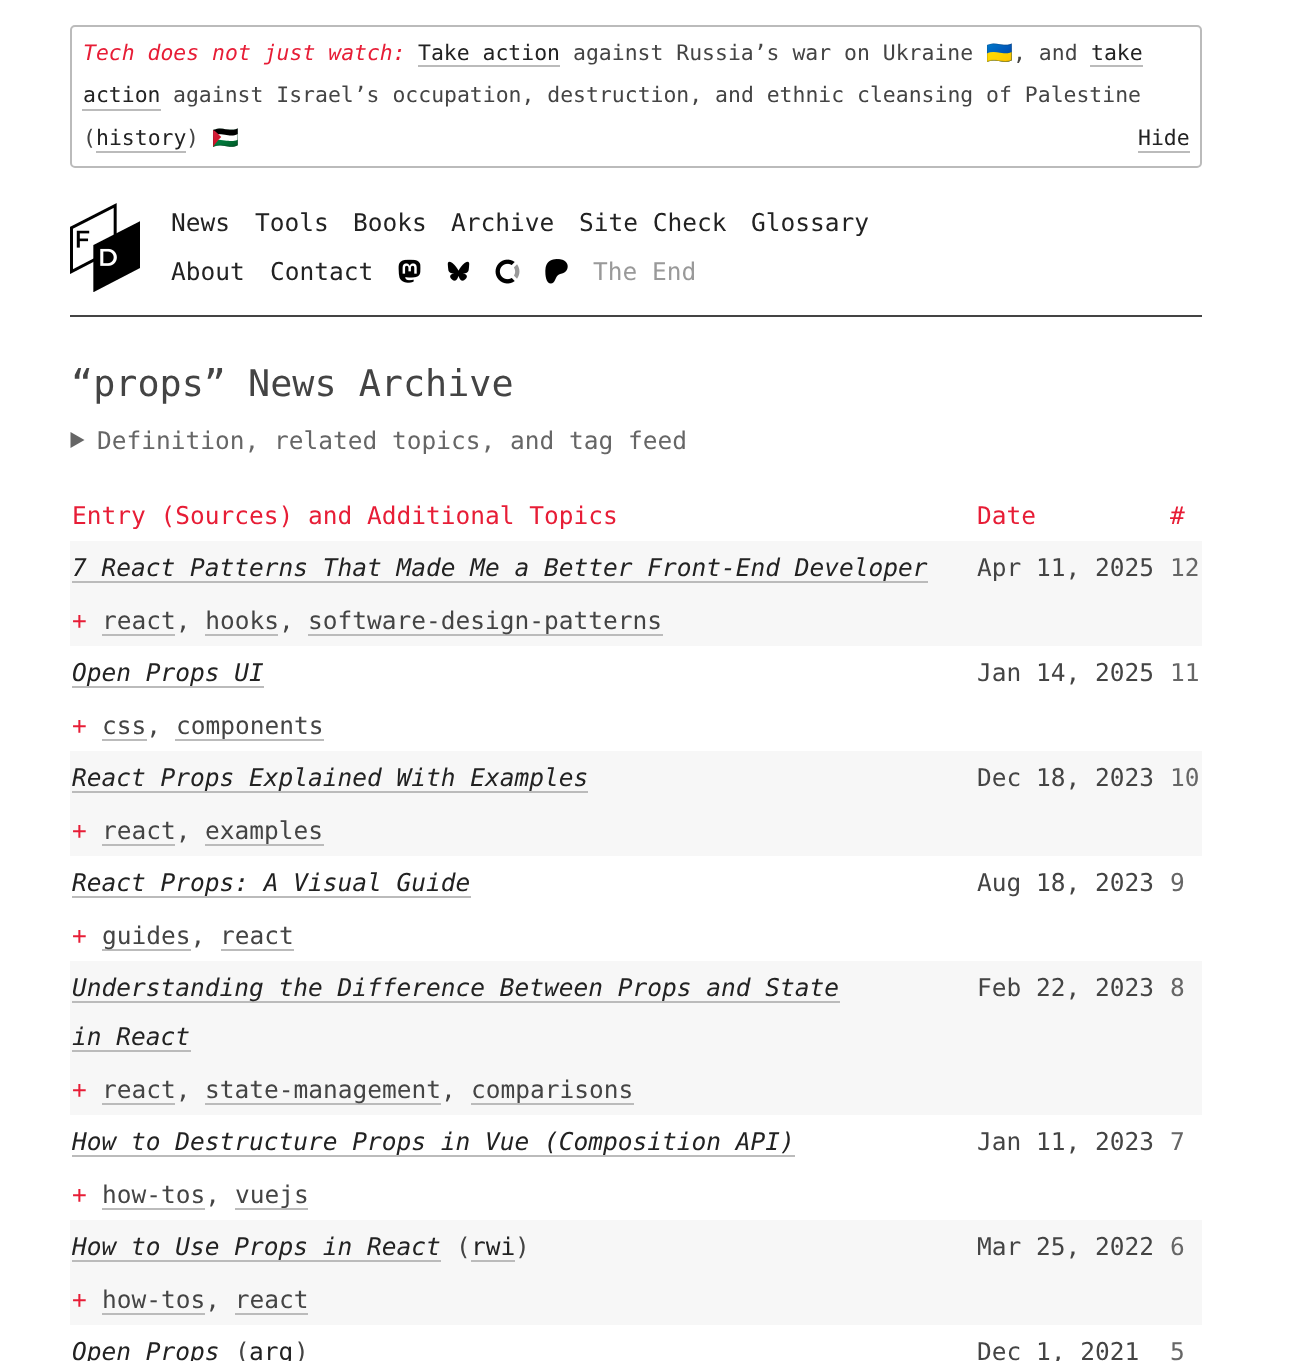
(async () => {
  const canvas = document.querySelector("canvas");
  canvas.width = 1297;
  canvas.height = 1361;
  const ctx = canvas.getContext("2d");
  ctx.miterLimit = 4;
  ctx.fontKerning = "normal";
  async function loadImage(src) {
    const img = new Image();
    img.src = src;
    await img.decode();
    return img;
  }
  let path;

  ctx.fillStyle = "#ffffff";
  ctx.fillRect(0, 0, 1297, 1361);
  ctx.beginPath();
  ctx.roundRect(71, 26, 1130, 141, 4);
  ctx.strokeStyle = "#bbbbbb";
  ctx.lineWidth = 2;
  ctx.stroke();
  for (const [x, y, w, h, color] of [
    [418, 65, 142, 2, "#bbbbbb"],
    [1090, 65, 53, 2, "#bbbbbb"],
    [82, 109, 79, 2, "#bbbbbb"],
    [96, 151, 90, 2, "#bbbbbb"],
    [1138, 151, 52, 2, "#bbbbbb"],
  ]) {
    ctx.fillStyle = color;
    ctx.fillRect(x, y, w, h);
  }
  ctx.drawImage(await loadImage("img/1.png"), 70, 203, 70, 89);
  ctx.drawImage(await loadImage("img/2.png"), 398, 259, 23, 24);
  ctx.drawImage(await loadImage("img/3.png"), 447, 261, 23, 20);
  ctx.drawImage(await loadImage("img/4.png"), 495, 259, 25, 25);
  ctx.drawImage(await loadImage("img/5.png"), 545, 259, 23, 25);
  ctx.fillStyle = "#444444";
  ctx.fillRect(70, 315, 1132, 2);
  ctx.fillStyle = "#666666";
  path = new Path2D("M70.5 432L84.5 440L70.5 448Z");
  ctx.fill(path);
  for (const [x, y, w, h, color] of [
    [70, 541, 1132, 105, "#f7f7f7"],
    [72, 581, 856, 2, "#bbbbbb"],
    [102, 634, 73, 2, "#bbbbbb"],
    [308, 634, 355, 2, "#bbbbbb"],
    [205, 634, 73, 2, "#bbbbbb"],
    [72, 686, 192, 2, "#bbbbbb"],
    [102, 739, 45, 2, "#bbbbbb"],
    [175, 739, 149, 2, "#bbbbbb"],
    [70, 751, 1132, 105, "#f7f7f7"],
    [72, 791, 516, 2, "#bbbbbb"],
    [102, 844, 73, 2, "#bbbbbb"],
    [205, 844, 119, 2, "#bbbbbb"],
    [72, 896, 399, 2, "#bbbbbb"],
    [102, 949, 89, 2, "#bbbbbb"],
    [70, 961, 1132, 154, "#f7f7f7"],
    [72, 1001, 768, 2, "#bbbbbb"],
    [72, 1050, 119, 2, "#bbbbbb"],
    [102, 1103, 73, 2, "#bbbbbb"],
    [205, 1103, 236, 2, "#bbbbbb"],
    [471, 1103, 163, 2, "#bbbbbb"],
    [72, 1155, 723, 2, "#bbbbbb"],
    [102, 1208, 103, 2, "#bbbbbb"],
    [235, 1208, 73, 2, "#bbbbbb"],
    [70, 1220, 1132, 105, "#f7f7f7"],
    [72, 1260, 369, 2, "#bbbbbb"],
    [471, 1260, 44, 2, "#bbbbbb"],
    [102, 1313, 103, 2, "#bbbbbb"],
    [235, 1313, 73, 2, "#bbbbbb"],
  ]) {
    ctx.fillStyle = color;
    ctx.fillRect(x, y, w, h);
  }
  ctx.font = "italic 21.45px DejaVu Sans Mono";
  ctx.fillStyle = "#e71d36";
  ctx.fillText("Tech does not just watch:", 83, 60);
  ctx.font = "21.45px DejaVu Sans Mono";
  ctx.fillStyle = "#222222";
  ctx.fillText("Take action", 418, 60);
  ctx.fillStyle = "#444444";
  ctx.fillText("against Russia’s war on Ukraine", 573, 60);
  ctx.font = "21.45px Noto Color Emoji";
  ctx.fillText("🇺🇦", 986, 60);
  ctx.font = "21.45px DejaVu Sans Mono";
  ctx.fillText(", and", 1013, 60);
  ctx.fillStyle = "#222222";
  ctx.fillText("take", 1091, 60);
  ctx.fillText("action", 83, 102);
  ctx.fillStyle = "#444444";
  ctx.fillText("against Israel’s occupation, destruction, and ethnic cleansing of Palestine", 173, 102);
  ctx.fillText("(", 83, 145);
  ctx.fillStyle = "#222222";
  ctx.fillText("history", 96, 145);
  ctx.fillStyle = "#444444";
  ctx.fillText(")", 186, 145);
  ctx.font = "21.45px Noto Color Emoji";
  ctx.fillText("🇵🇸", 212, 145);
  ctx.font = "21.45px DejaVu Sans Mono";
  ctx.fillStyle = "#222222";
  ctx.fillText("Hide", 1138, 145);
  ctx.font = "24.5px DejaVu Sans Mono";
  for (const [text, x, y] of [
    ["News", 171, 231],
    ["Tools", 255, 231],
    ["Books", 353, 231],
    ["Archive", 451, 231],
    ["Site Check", 579, 231],
    ["Glossary", 751, 231],
    ["About", 171, 280],
    ["Contact", 270, 280],
  ]) {
    ctx.fillText(text, x, y);
  }
  ctx.fillStyle = "#999999";
  ctx.fillText("The End", 593, 280);
  ctx.font = "36.75px DejaVu Sans Mono";
  ctx.fillStyle = "#444444";
  ctx.fillText("“props” News Archive", 71, 396);
  ctx.font = "24.5px DejaVu Sans Mono";
  ctx.fillStyle = "#666666";
  ctx.fillText("Definition, related topics, and tag feed", 97, 449);
  ctx.fillStyle = "#e71d36";
  for (const [text, x, y] of [
    ["Entry (Sources) and Additional Topics", 72, 524],
    ["Date", 977, 524],
    ["#", 1170, 524],
  ]) {
    ctx.fillText(text, x, y);
  }
  ctx.font = "italic 24.5px DejaVu Sans Mono";
  ctx.fillStyle = "#222222";
  ctx.fillText("7 React Patterns That Made Me a Better Front-End Developer", 72, 576);
  ctx.font = "24.5px DejaVu Sans Mono";
  ctx.fillStyle = "#444444";
  ctx.fillText("Apr 11, 2025", 977, 576);
  ctx.fillStyle = "#666666";
  ctx.fillText("12", 1170, 576);
  ctx.fillStyle = "#e71d36";
  ctx.fillText("+", 72, 629);
  ctx.fillStyle = "#444444";
  ctx.fillText("react, hooks,", 102, 629);
  ctx.fillText("software-design-patterns", 308, 629);
  ctx.font = "italic 24.5px DejaVu Sans Mono";
  ctx.fillStyle = "#222222";
  ctx.fillText("Open Props UI", 72, 681);
  ctx.font = "24.5px DejaVu Sans Mono";
  ctx.fillStyle = "#444444";
  ctx.fillText("Jan 14, 2025", 977, 681);
  ctx.fillStyle = "#666666";
  ctx.fillText("11", 1170, 681);
  ctx.fillStyle = "#e71d36";
  ctx.fillText("+", 72, 734);
  ctx.fillStyle = "#444444";
  ctx.fillText("css,", 102, 734);
  ctx.fillText("components", 176, 734);
  ctx.font = "italic 24.5px DejaVu Sans Mono";
  ctx.fillStyle = "#222222";
  ctx.fillText("React Props Explained With Examples", 72, 786);
  ctx.font = "24.5px DejaVu Sans Mono";
  ctx.fillStyle = "#444444";
  ctx.fillText("Dec 18, 2023", 977, 786);
  ctx.fillStyle = "#666666";
  ctx.fillText("10", 1170, 786);
  ctx.fillStyle = "#e71d36";
  ctx.fillText("+", 72, 839);
  ctx.fillStyle = "#444444";
  ctx.fillText("react,", 102, 839);
  ctx.fillText("examples", 205, 839);
  ctx.font = "italic 24.5px DejaVu Sans Mono";
  ctx.fillStyle = "#222222";
  ctx.fillText("React Props: A Visual Guide", 72, 891);
  ctx.font = "24.5px DejaVu Sans Mono";
  ctx.fillStyle = "#444444";
  ctx.fillText("Aug 18, 2023", 977, 891);
  ctx.fillStyle = "#666666";
  ctx.fillText("9", 1170, 891);
  ctx.fillStyle = "#e71d36";
  ctx.fillText("+", 72, 944);
  ctx.fillStyle = "#444444";
  ctx.fillText("guides, react", 102, 944);
  ctx.fillStyle = "#bbbbbb";
  ctx.fillRect(221, 949, 73, 2);
  ctx.font = "italic 24.5px DejaVu Sans Mono";
  ctx.fillStyle = "#222222";
  ctx.fillText("Understanding the Difference Between Props and State", 72, 996);
  ctx.fillText("in React", 72, 1045);
  ctx.font = "24.5px DejaVu Sans Mono";
  ctx.fillStyle = "#444444";
  ctx.fillText("Feb 22, 2023", 977, 996);
  ctx.fillStyle = "#666666";
  ctx.fillText("8", 1170, 996);
  ctx.fillStyle = "#e71d36";
  ctx.fillText("+", 72, 1098);
  ctx.fillStyle = "#444444";
  for (const [text, x, y] of [
    ["react,", 102, 1098],
    ["state-management,", 205, 1098],
    ["comparisons", 471, 1098],
  ]) {
    ctx.fillText(text, x, y);
  }
  ctx.font = "italic 24.5px DejaVu Sans Mono";
  ctx.fillStyle = "#222222";
  ctx.fillText("How to Destructure Props in Vue (Composition API)", 72, 1150);
  ctx.font = "24.5px DejaVu Sans Mono";
  ctx.fillStyle = "#444444";
  ctx.fillText("Jan 11, 2023", 977, 1150);
  ctx.fillStyle = "#666666";
  ctx.fillText("7", 1170, 1150);
  ctx.fillStyle = "#e71d36";
  ctx.fillText("+", 72, 1203);
  ctx.fillStyle = "#444444";
  ctx.fillText("how-tos,", 102, 1203);
  ctx.fillText("vuejs", 235, 1203);
  ctx.font = "italic 24.5px DejaVu Sans Mono";
  ctx.fillStyle = "#222222";
  ctx.fillText("How to Use Props in React", 72, 1255);
  ctx.font = "24.5px DejaVu Sans Mono";
  ctx.fillStyle = "#444444";
  ctx.fillText("(", 456, 1255);
  ctx.fillStyle = "#222222";
  ctx.fillText("rwi", 471, 1255);
  ctx.fillStyle = "#444444";
  ctx.fillText(")", 515, 1255);
  ctx.fillText("Mar 25, 2022", 977, 1255);
  ctx.fillStyle = "#666666";
  ctx.fillText("6", 1170, 1255);
  ctx.fillStyle = "#e71d36";
  ctx.fillText("+", 72, 1308);
  ctx.fillStyle = "#444444";
  ctx.fillText("how-tos, react", 102, 1308);
  ctx.font = "italic 24.5px DejaVu Sans Mono";
  ctx.fillStyle = "#222222";
  ctx.fillText("Open Props", 72, 1360);
  ctx.font = "24.5px DejaVu Sans Mono";
  ctx.fillStyle = "#444444";
  ctx.fillText("(", 235, 1360);
  ctx.fillStyle = "#222222";
  ctx.fillText("arg", 249, 1360);
  ctx.fillStyle = "#444444";
  ctx.fillText(")", 294, 1360);
  ctx.fillText("Dec 1, 2021", 977, 1360);
  ctx.fillStyle = "#666666";
  ctx.fillText("5", 1170, 1360);
})();
